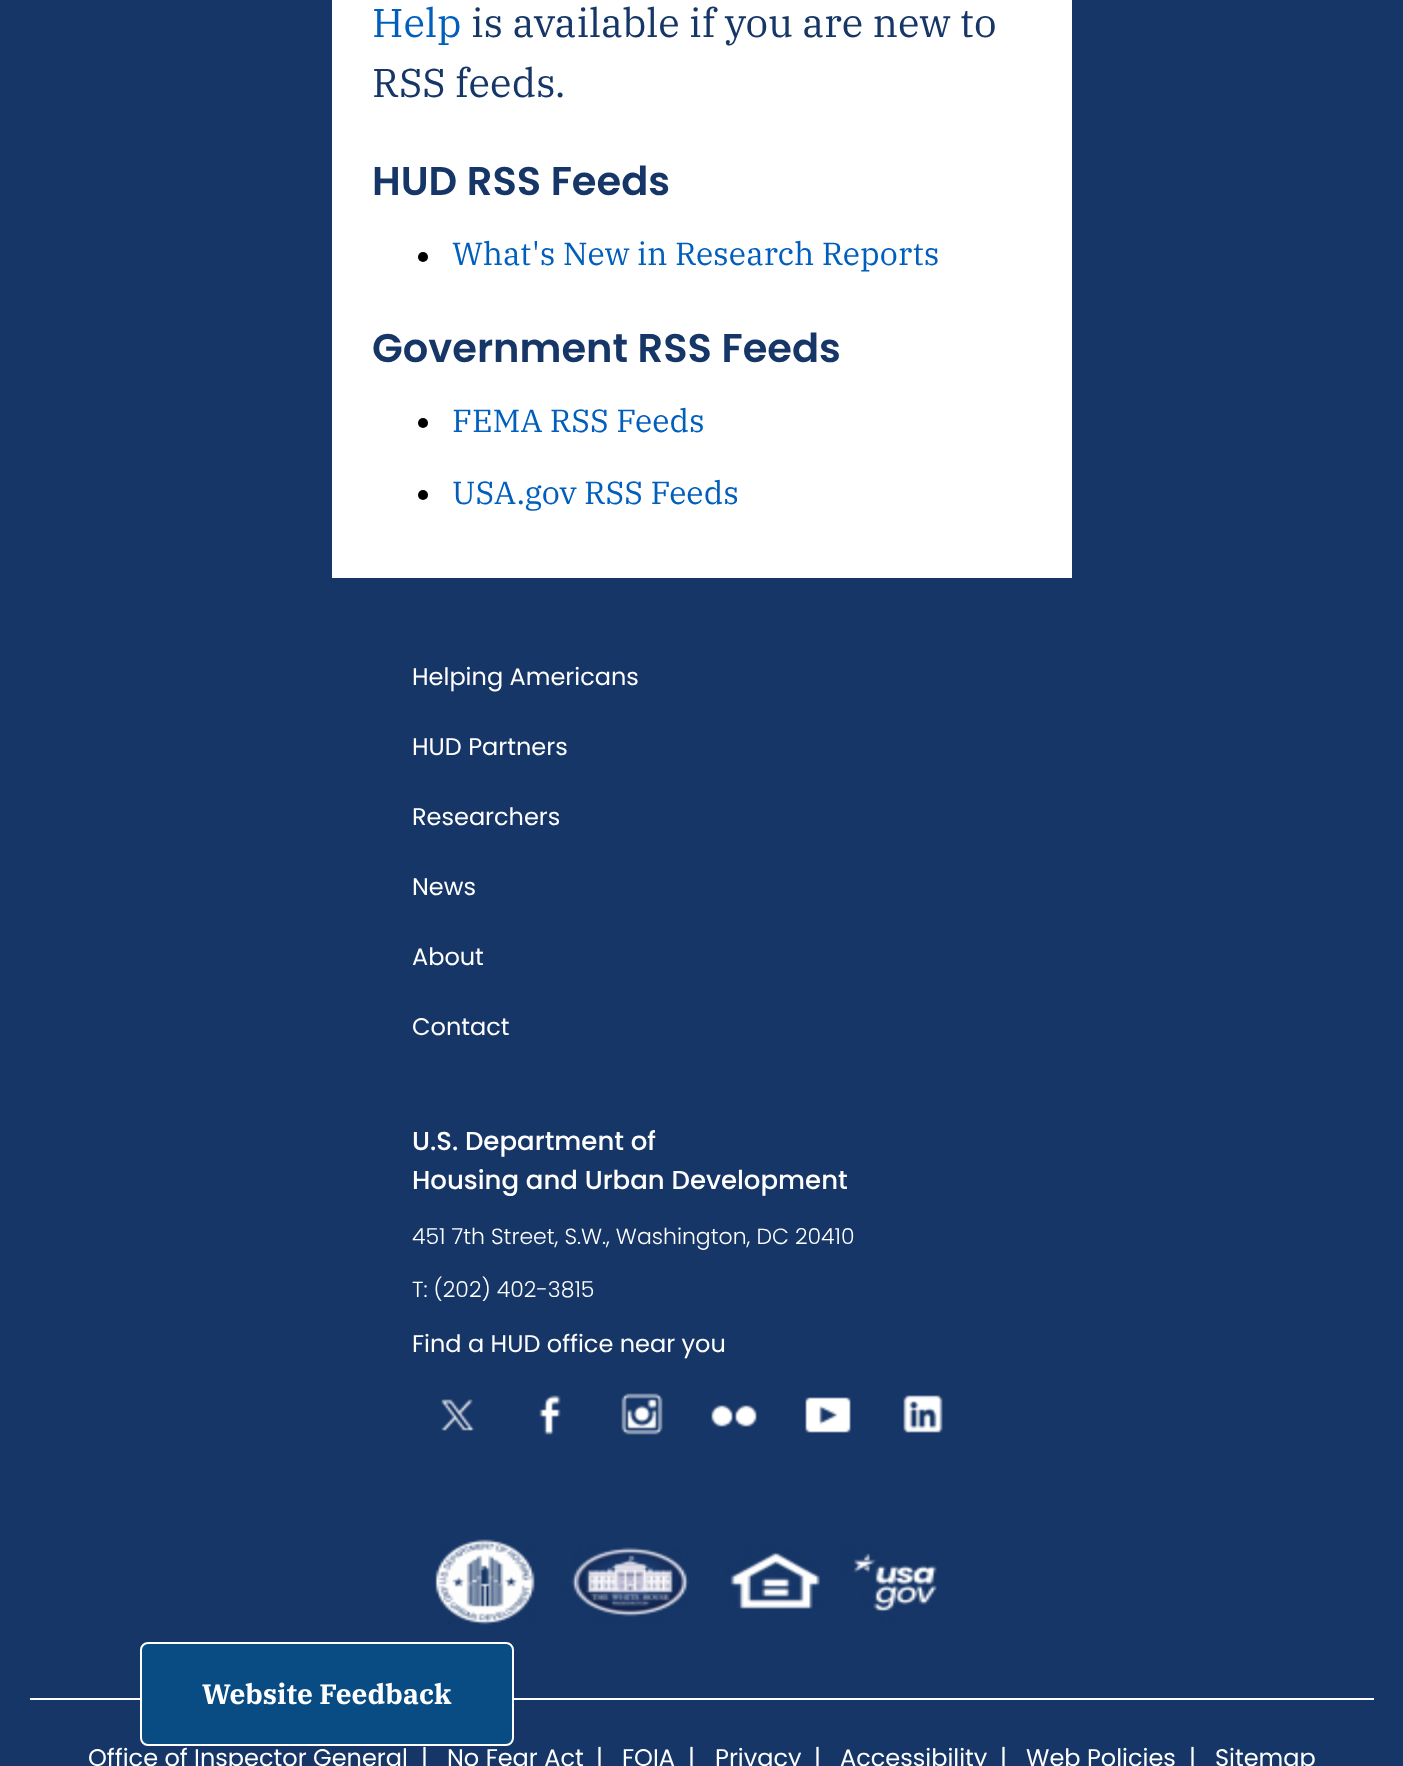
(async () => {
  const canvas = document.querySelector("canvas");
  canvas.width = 1403;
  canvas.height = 1766;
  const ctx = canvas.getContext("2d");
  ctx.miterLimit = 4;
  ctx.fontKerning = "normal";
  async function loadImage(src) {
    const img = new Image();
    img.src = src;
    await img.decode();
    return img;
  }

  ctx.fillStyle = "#163667";
  ctx.fillRect(0, 0, 1403, 1766);
  ctx.fillStyle = "#ffffff";
  ctx.fillRect(332, 0, 740, 578);
  ctx.fillStyle = "#000000";
  ctx.beginPath();
  ctx.arc(423, 257, 5, 0, Math.PI * 2);
  ctx.fill();
  ctx.beginPath();
  ctx.arc(423, 423, 5, 0, Math.PI * 2);
  ctx.fill();
  ctx.beginPath();
  ctx.arc(423, 495, 5, 0, Math.PI * 2);
  ctx.fill();
  ctx.drawImage(await loadImage("img/1.png"), 441, 1393, 502, 42);
  ctx.drawImage(await loadImage("img/2.png"), 435, 1539, 502, 86);
  ctx.fillStyle = "#ffffff";
  ctx.fillRect(30, 1698, 1344, 2);
  ctx.fillStyle = "#094b83";
  ctx.beginPath();
  ctx.roundRect(141, 1643, 372, 102, 7);
  ctx.fill();
  ctx.strokeStyle = "#ffffff";
  ctx.lineWidth = 2;
  ctx.stroke();
  ctx.font = "40px IBM Plex Serif";
  ctx.fillStyle = "#005ebd";
  ctx.fillText("Help", 372, 37);
  ctx.fillStyle = "#163667";
  ctx.fillText("is available if you are new to", 471, 37);
  ctx.fillText("RSS feeds.", 372, 97);
  ctx.font = "600 40px Poppins";
  ctx.fillText("HUD RSS Feeds", 372, 195);
  ctx.font = "32px IBM Plex Serif";
  ctx.fillStyle = "#005ebd";
  ctx.fillText("What's New in Research Reports", 452, 265);
  ctx.font = "600 40px Poppins";
  ctx.fillStyle = "#163667";
  ctx.fillText("Government RSS Feeds", 372, 362);
  ctx.font = "32px IBM Plex Serif";
  ctx.fillStyle = "#005ebd";
  ctx.fillText("FEMA RSS Feeds", 452, 432);
  ctx.fillText("USA.gov RSS Feeds", 452, 504);
  ctx.font = "24px Poppins";
  ctx.fillStyle = "#ffffff";
  for (const [text, x, y] of [
    ["Helping Americans", 412, 685],
    ["HUD Partners", 412, 755],
    ["Researchers", 412, 825],
    ["News", 412, 895],
    ["About", 412, 965],
    ["Contact", 412, 1035],
  ]) {
    ctx.fillText(text, x, y);
  }
  ctx.font = "500 26px Poppins";
  ctx.fillText("U.S. Department of", 412, 1150);
  ctx.fillText("Housing and Urban Development", 412, 1189);
  ctx.font = "300 22px Poppins";
  ctx.fillText("451 7th Street, S.W., Washington, DC 20410", 412, 1244);
  ctx.fillText("T: (202) 402-3815", 412, 1297);
  ctx.font = "24px Poppins";
  ctx.fillText("Find a HUD office near you", 412, 1352);
  ctx.font = "bold 28px IBM Plex Serif";
  ctx.fillText("Website Feedback", 202, 1704);
  ctx.font = "24px Poppins";
  for (const [text, x, y] of [
    ["Office of Inspector General", 88, 1766],
    ["|", 421, 1766],
    ["No Fear Act", 447, 1766],
    ["|", 596, 1766],
    ["FOIA", 622, 1766],
    ["|", 688, 1766],
    ["Privacy", 715, 1766],
    ["|", 814, 1766],
    ["Accessibility", 840, 1766],
    ["|", 1000, 1766],
    ["Web Policies", 1026, 1766],
    ["|", 1189, 1766],
    ["Sitemap", 1215, 1766],
  ]) {
    ctx.fillText(text, x, y);
  }
})();
